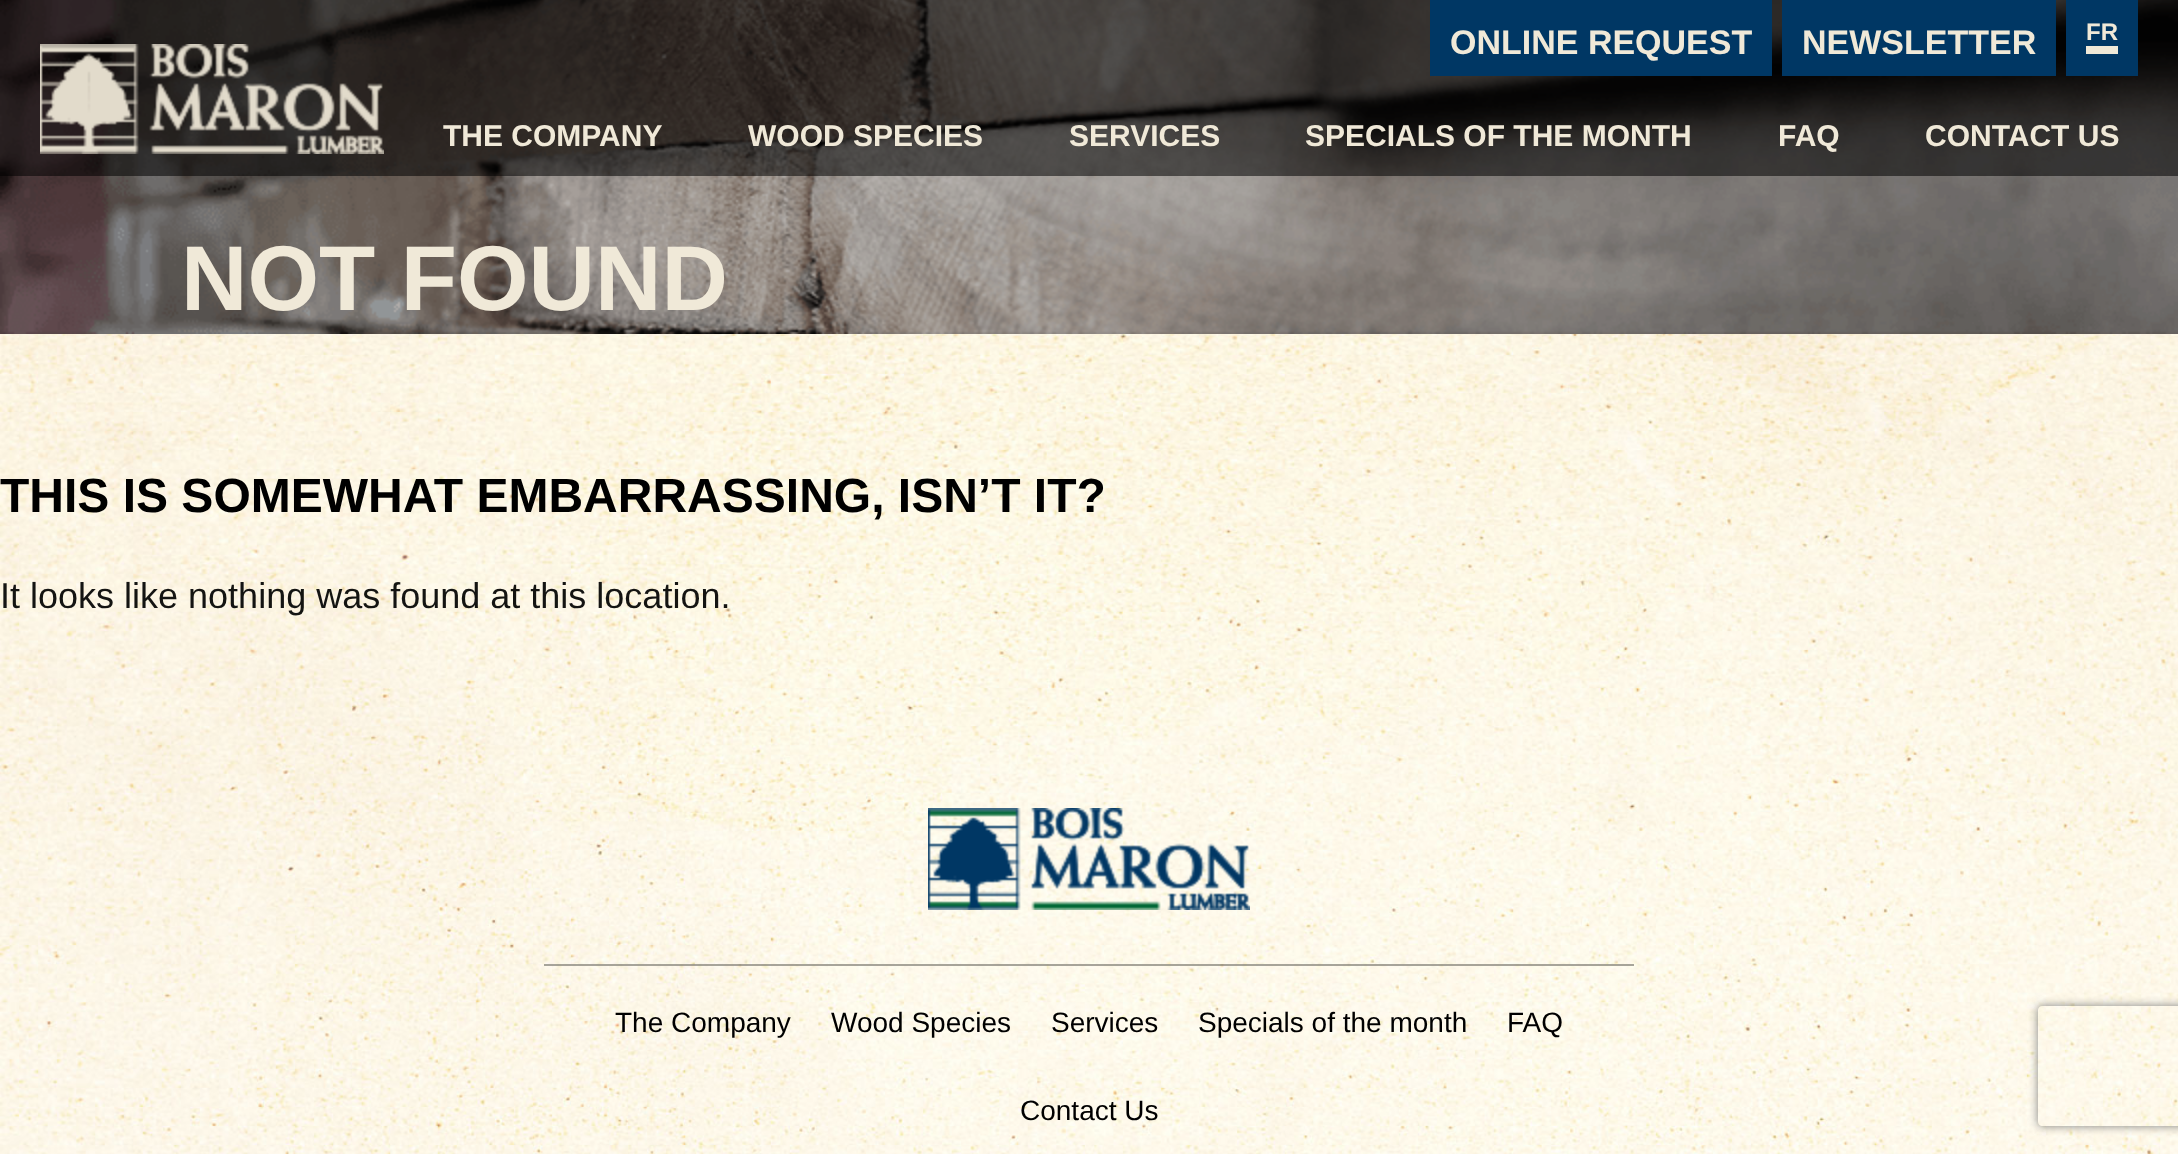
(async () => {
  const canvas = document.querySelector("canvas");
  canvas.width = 2178;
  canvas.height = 1154;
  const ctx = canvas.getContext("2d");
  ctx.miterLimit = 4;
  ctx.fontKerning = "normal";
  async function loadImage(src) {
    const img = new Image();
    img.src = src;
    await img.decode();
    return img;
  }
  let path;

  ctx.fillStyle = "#ffffff";
  ctx.fillRect(0, 0, 2178, 1154);
  ctx.drawImage(await loadImage("img/1.png"), 0, 334, 2178, 820);
  ctx.fillStyle = "#000000";
  ctx.fillRect(0, 0, 2178, 334);
  ctx.drawImage(await loadImage("img/3.png"), 0, 0, 2178, 334);
  ctx.fillStyle = "rgba(0, 0, 0, 0.54)";
  ctx.fillRect(0, 0, 2178, 176);
  ctx.drawImage(await loadImage("img/2.png"), 40, 44, 344, 110);
  for (const [x, y, w, h, color] of [
    [1430, 0, 342, 76, "#003764"],
    [1782, 0, 274, 76, "#003764"],
    [2066, 0, 72, 76, "#003764"],
    [2086, 46, 32, 8, "#f0e9d8"],
  ]) {
    ctx.fillStyle = color;
    ctx.fillRect(x, y, w, h);
  }
  ctx.drawImage(await loadImage("img/4.png"), 928, 808, 322, 102);
  ctx.fillStyle = "rgba(136, 133, 124, 0.74)";
  ctx.fillRect(544, 964, 1090, 2);
  ctx.save();
  path = new Path2D("M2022 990H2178V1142H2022ZM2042 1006H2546C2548 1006 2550 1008 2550 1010V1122C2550 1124 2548 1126 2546 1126H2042C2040 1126 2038 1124 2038 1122V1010C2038 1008 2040 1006 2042 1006Z");
  ctx.clip(path, "evenodd");
  ctx.fillStyle = "#808080";
  ctx.filter = "blur(5px)";
  ctx.beginPath();
  ctx.roundRect(2038, 1006, 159, 120, 4);
  ctx.fill();
  ctx.filter = "none";
  ctx.restore();
  ctx.font = "bold 34px Liberation Sans";
  ctx.fillStyle = "#f0e9d8";
  ctx.fillText("ONLINE REQUEST", 1450, 54);
  ctx.fillText("NEWSLETTER", 1802, 54);
  ctx.font = "bold 24px Liberation Sans";
  ctx.fillText("FR", 2086, 40);
  ctx.font = "bold 30px Liberation Sans";
  for (const [text, x, y] of [
    ["THE COMPANY", 443, 146],
    ["WOOD SPECIES", 748, 146],
    ["SERVICES", 1069, 146],
    ["SPECIALS OF THE MONTH", 1305, 146],
    ["FAQ", 1778, 146],
    ["CONTACT US", 1925, 146],
  ]) {
    ctx.fillText(text, x, y);
  }
  ctx.font = "bold 92px Liberation Sans";
  ctx.fillText("NOT FOUND", 181, 310);
  ctx.font = "bold 48px Liberation Sans";
  ctx.fillStyle = "#000000";
  ctx.fillText("THIS IS SOMEWHAT EMBARRASSING, ISN’T IT?", 0, 512);
  ctx.font = "36px Liberation Sans";
  ctx.fillStyle = "#141412";
  ctx.fillText("It looks like nothing was found at this location.", 0, 608);
  ctx.font = "28px Liberation Sans";
  ctx.fillStyle = "#000000";
  for (const [text, x, y] of [
    ["The Company", 615, 1032],
    ["Wood Species", 831, 1032],
    ["Services", 1051, 1032],
    ["Specials of the month", 1198, 1032],
    ["FAQ", 1507, 1032],
    ["Contact Us", 1020, 1120],
  ]) {
    ctx.fillText(text, x, y);
  }
})();
